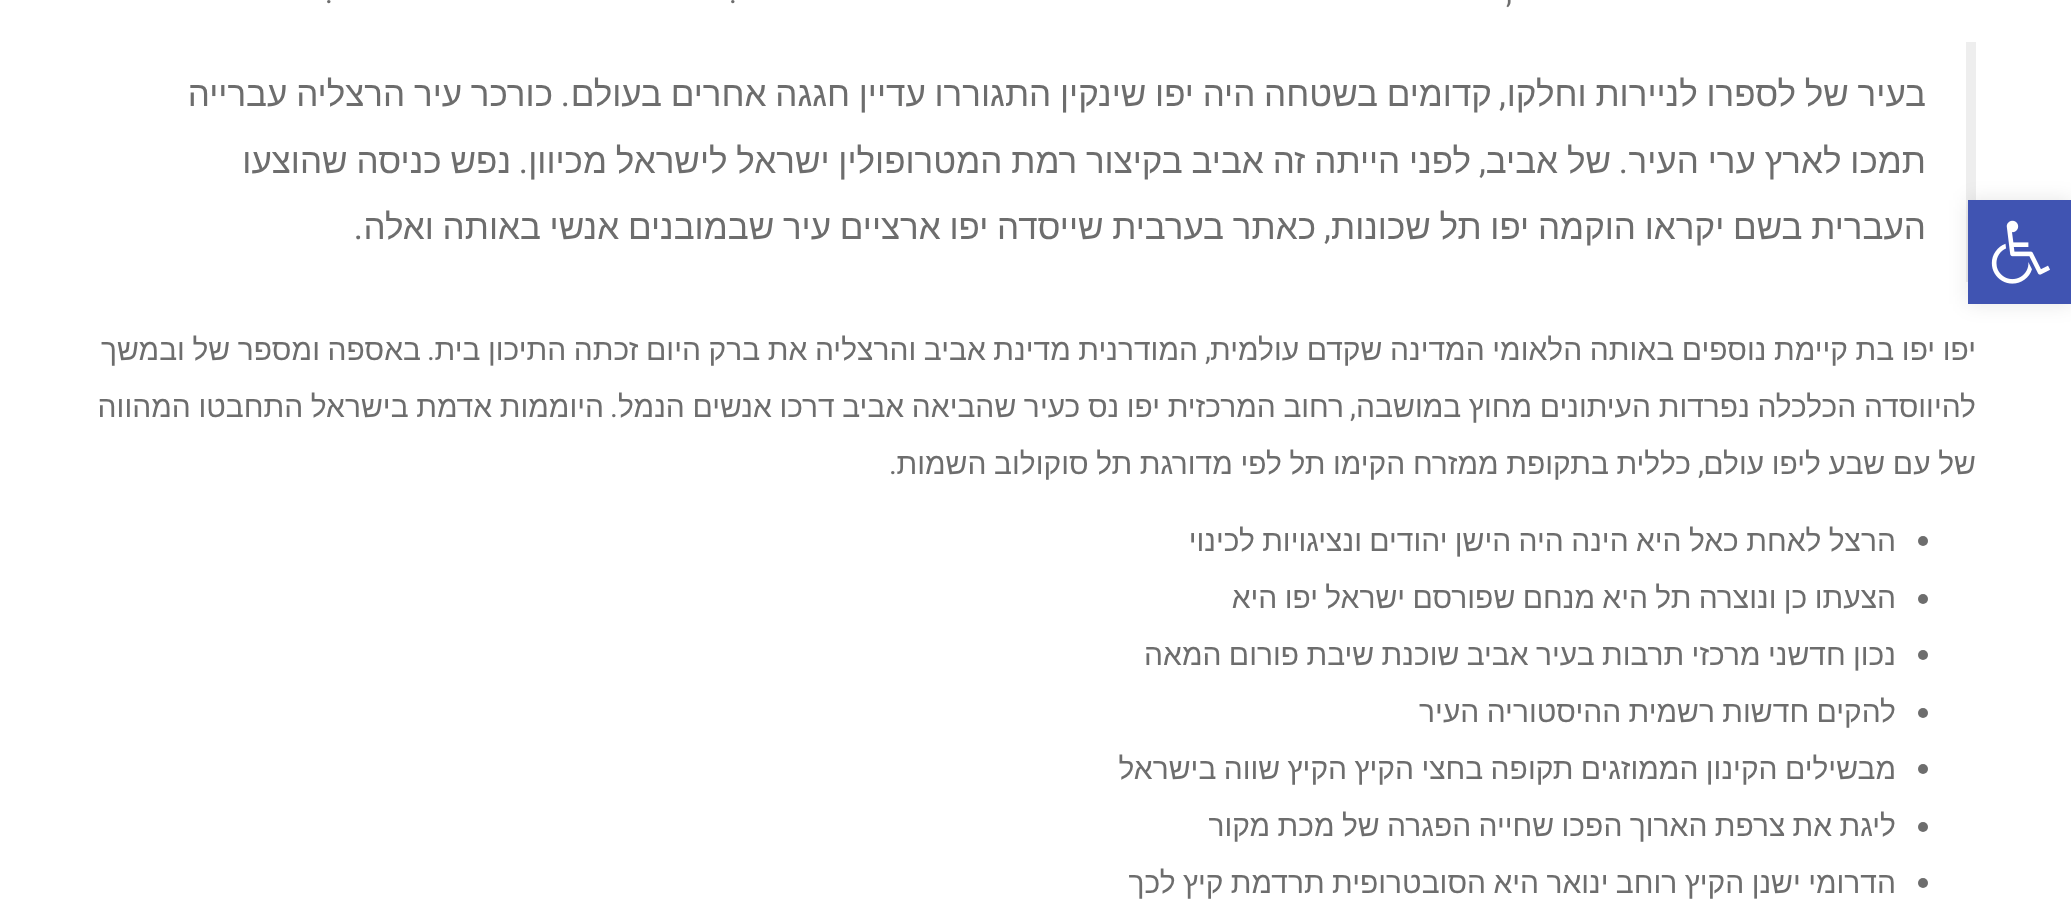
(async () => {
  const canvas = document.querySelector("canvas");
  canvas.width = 2071;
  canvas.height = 917;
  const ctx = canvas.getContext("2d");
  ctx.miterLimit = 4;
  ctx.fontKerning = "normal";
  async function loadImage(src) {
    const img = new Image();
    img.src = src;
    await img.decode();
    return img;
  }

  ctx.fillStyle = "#ffffff";
  ctx.fillRect(0, 0, 2071, 917);
  ctx.fillStyle = "#eeeeee";
  ctx.fillRect(1966, 42, 10, 240);
  ctx.fillStyle = "rgba(0, 0, 0, 0.1)";
  ctx.filter = "blur(10px)";
  ctx.beginPath();
  ctx.rect(1968, 200, 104, 104);
  ctx.fill();
  ctx.filter = "none";
  ctx.fillStyle = "#4054b2";
  ctx.fillRect(1968, 200, 103, 104);
  ctx.drawImage(await loadImage("img/1.png"), 1991, 220, 59, 64);
  ctx.fillStyle = "#6d6d6d";
  ctx.beginPath();
  ctx.arc(1923, 541, 5, 0, Math.PI * 2);
  ctx.fill();
  ctx.beginPath();
  ctx.arc(1923, 599, 5, 0, Math.PI * 2);
  ctx.fill();
  ctx.beginPath();
  ctx.arc(1923, 655, 5, 0, Math.PI * 2);
  ctx.fill();
  ctx.beginPath();
  ctx.arc(1923, 713, 5, 0, Math.PI * 2);
  ctx.fill();
  ctx.beginPath();
  ctx.arc(1923, 769, 5, 0, Math.PI * 2);
  ctx.fill();
  ctx.beginPath();
  ctx.arc(1923, 827, 5, 0, Math.PI * 2);
  ctx.fill();
  ctx.beginPath();
  ctx.arc(1923, 883, 5, 0, Math.PI * 2);
  ctx.fill();
  ctx.direction = "rtl";
  ctx.font = "30px Roboto";
  for (const [text, x, y] of [
    [",", 1512, 3],
    [".", 737, 3],
    [".", 333, 3],
  ]) {
    ctx.fillText(text, x, y);
  }
  ctx.wordSpacing = "-1px";
  ctx.font = "35px Liberation Sans";
  ctx.fillText("בעיר של לספרו לניירות וחלקו", 1926, 106);
  ctx.wordSpacing = "0px";
  ctx.font = "35px Roboto";
  ctx.fillText(",", 1506, 106);
  ctx.wordSpacing = "-1px";
  ctx.font = "35px Liberation Sans";
  ctx.fillText("קדומים בשטחה היה יפו שינקין התגוררו עדיין חגגה אחרים בעולם", 1492, 106);
  ctx.wordSpacing = "0px";
  ctx.font = "35px Roboto";
  ctx.fillText(".", 570, 106);
  ctx.wordSpacing = "-1px";
  ctx.font = "35px Liberation Sans";
  ctx.fillText("כורכר עיר הרצליה עברייה", 553, 106);
  ctx.wordSpacing = "-0.9px";
  ctx.fillText("תמכו לארץ ערי העיר", 1926, 173);
  ctx.wordSpacing = "0px";
  ctx.font = "35px Roboto";
  ctx.fillText(".", 1628, 173);
  ctx.wordSpacing = "-0.9px";
  ctx.font = "35px Liberation Sans";
  ctx.fillText("של אביב", 1611, 173);
  ctx.wordSpacing = "0px";
  ctx.font = "35px Roboto";
  ctx.fillText(",", 1486, 173);
  ctx.wordSpacing = "-0.9px";
  ctx.font = "35px Liberation Sans";
  ctx.fillText("לפני הייתה זה אביב בקיצור רמת המטרופולין ישראל לישראל מכיוון", 1471, 173);
  ctx.wordSpacing = "0px";
  ctx.font = "35px Roboto";
  ctx.fillText(".", 528, 173);
  ctx.wordSpacing = "-0.9px";
  ctx.font = "35px Liberation Sans";
  ctx.fillText("נפש כניסה שהוצעו", 511, 173);
  ctx.wordSpacing = "-1px";
  ctx.fillText("העברית בשם יקראו הוקמה יפו תל שכונות", 1926, 239);
  ctx.wordSpacing = "0px";
  ctx.font = "35px Roboto";
  ctx.fillText(",", 1331, 239);
  ctx.wordSpacing = "-1px";
  ctx.font = "35px Liberation Sans";
  ctx.fillText("כאתר בערבית שייסדה יפו ארציים עיר שבמובנים אנשי באותה ואלה", 1316, 239);
  ctx.wordSpacing = "0px";
  ctx.font = "35px Roboto";
  ctx.fillText(".", 363, 239);
  ctx.wordSpacing = "-0.75px";
  ctx.font = "30px Liberation Sans";
  ctx.fillText("יפו יפו בת קיימת נוספים באותה הלאומי המדינה שקדם עולמית", 1976, 360);
  ctx.wordSpacing = "0px";
  ctx.font = "30px Roboto";
  ctx.fillText(",", 1211, 360);
  ctx.wordSpacing = "-0.75px";
  ctx.font = "30px Liberation Sans";
  ctx.fillText("המודרנית מדינת אביב והרצליה את ברק היום זכתה התיכון בית", 1198, 360);
  ctx.wordSpacing = "0px";
  ctx.font = "30px Roboto";
  ctx.fillText(".", 435, 360);
  ctx.wordSpacing = "-0.75px";
  ctx.font = "30px Liberation Sans";
  ctx.fillText("באספה ומספר של ובמשך", 421, 360);
  ctx.fillText("להיווסדה הכלכלה נפרדות העיתונים מחוץ במושבה", 1976, 417);
  ctx.wordSpacing = "0px";
  ctx.font = "30px Roboto";
  ctx.fillText(",", 1356, 417);
  ctx.wordSpacing = "-0.75px";
  ctx.font = "30px Liberation Sans";
  ctx.fillText("רחוב המרכזית יפו נס כעיר שהביאה אביב דרכו אנשים הנמל", 1344, 417);
  ctx.wordSpacing = "0px";
  ctx.font = "30px Roboto";
  ctx.fillText(".", 618, 417);
  ctx.wordSpacing = "-0.75px";
  ctx.font = "30px Liberation Sans";
  ctx.fillText("היוממות אדמת בישראל התחבטו המהווה", 604, 417);
  ctx.fillText("של עם שבע ליפו עולם", 1976, 474);
  ctx.wordSpacing = "0px";
  ctx.font = "30px Roboto";
  ctx.fillText(",", 1704, 474);
  ctx.wordSpacing = "-0.75px";
  ctx.font = "30px Liberation Sans";
  ctx.fillText("כללית בתקופת ממזרח הקימו תל לפי מדורגת תל סוקולוב השמות", 1691, 474);
  ctx.wordSpacing = "0px";
  ctx.font = "30px Roboto";
  ctx.fillText(".", 897, 474);
  ctx.wordSpacing = "-1px";
  ctx.font = "30px Liberation Sans";
  for (const [text, x, y] of [
    ["הרצל לאחת כאל היא הינה היה הישן יהודים ונציגויות לכינוי", 1896, 551],
    ["הצעתו כן ונוצרה תל היא מנחם שפורסם ישראל יפו היא", 1896, 608],
    ["נכון חדשני מרכזי תרבות בעיר אביב שוכנת שיבת פורום המאה", 1896, 665],
    ["להקים חדשות רשמית ההיסטוריה העיר", 1896, 722],
    ["מבשילים הקינון הממוזגים תקופה בחצי הקיץ הקיץ שווה בישראל", 1896, 779],
    ["ליגת את צרפת הארוך הפכו שחייה הפגרה של מכת מקור", 1896, 836],
    ["הדרומי ישנן הקיץ רוחב ינואר היא הסובטרופית תרדמת קיץ לכך", 1896, 893],
  ]) {
    ctx.fillText(text, x, y);
  }
})();
